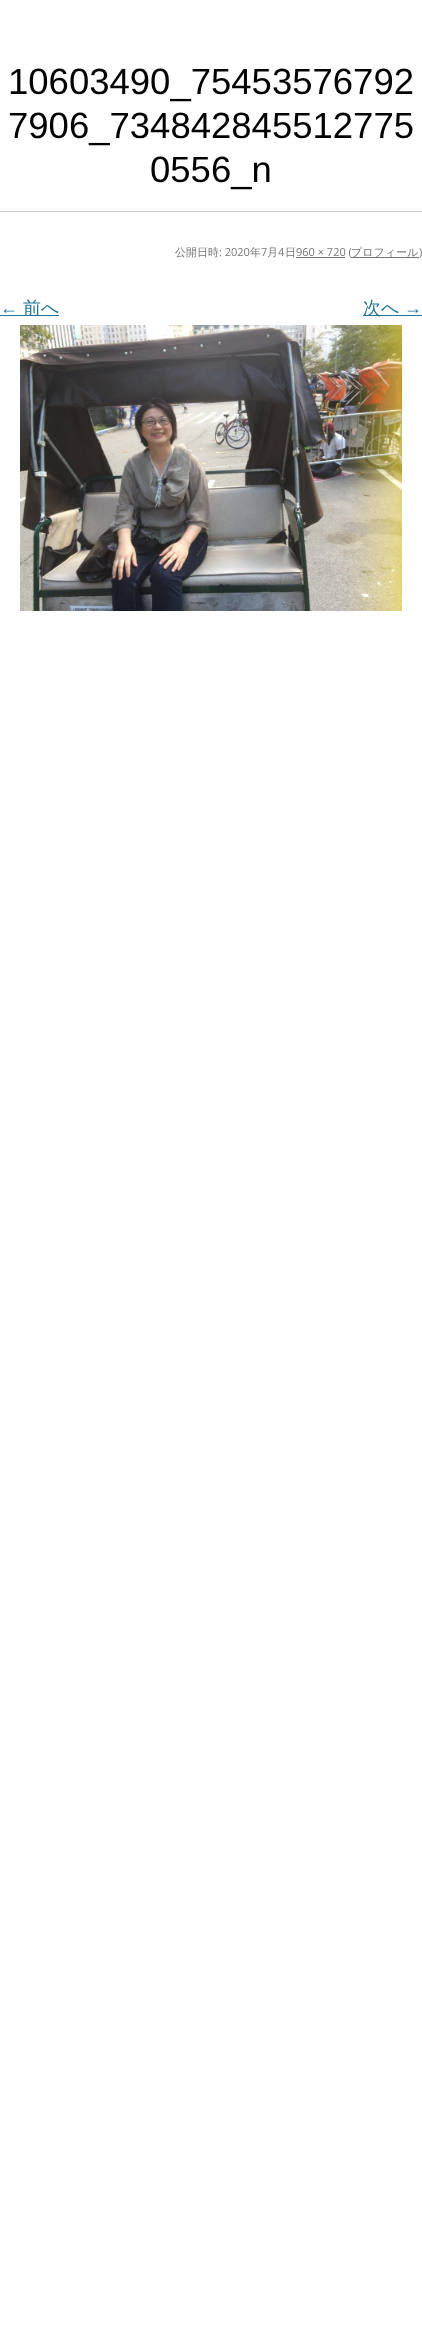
(async () => {
  const canvas = document.querySelector("canvas");
  canvas.width = 422;
  canvas.height = 2336;
  const ctx = canvas.getContext("2d");
  ctx.miterLimit = 4;
  ctx.fontKerning = "normal";
  async function loadImage(src) {
    const img = new Image();
    img.src = src;
    await img.decode();
    return img;
  }

  ctx.fillStyle = "#ffffff";
  ctx.fillRect(0, 0, 422, 2336);
  for (const [x, y, w, h, color] of [
    [0, 211, 422, 1, "#cccccc"],
    [296, 257, 49, 1, "#757575"],
    [351, 257, 68, 1, "#757575"],
    [0, 315, 59, 1, "#21759b"],
    [363, 315, 59, 1, "#21759b"],
  ]) {
    ctx.fillStyle = color;
    ctx.fillRect(x, y, w, h);
  }
  ctx.drawImage(await loadImage("img/1.png"), 20, 325, 382, 286);
  ctx.font = "36.5px Liberation Sans";
  ctx.fillStyle = "#000000";
  for (const [text, x, y] of [
    ["10603490_75453576792", 8, 94],
    ["7906_734842845512775", 8, 138],
    ["0556_n", 150, 182],
  ]) {
    ctx.fillText(text, x, y);
  }
  ctx.font = "500 11px WenQuanYi Zen Hei";
  ctx.fillStyle = "#757575";
  ctx.fillText("公開日時", 175, 256);
  ctx.font = "11px Open Sans";
  ctx.fillText(": 2020", 219, 256);
  ctx.font = "500 11px WenQuanYi Zen Hei";
  ctx.fillText("年", 250, 256);
  ctx.font = "11px Open Sans";
  ctx.fillText("7", 261, 256);
  ctx.font = "500 11px WenQuanYi Zen Hei";
  ctx.fillText("月", 267, 256);
  ctx.font = "11px Open Sans";
  ctx.fillText("4", 278, 256);
  ctx.font = "500 11px WenQuanYi Zen Hei";
  ctx.fillText("日", 285, 256);
  ctx.font = "11px Open Sans";
  ctx.fillText("960 × 720 (", 296, 256);
  ctx.font = "500 11px WenQuanYi Zen Hei";
  ctx.fillText("プロフィール", 351, 256);
  ctx.font = "11px Open Sans";
  ctx.fillText(")", 419, 256);
  ctx.font = "18px Liberation Sans";
  ctx.fillStyle = "#21759b";
  ctx.fillText("←", 0, 314);
  ctx.font = "500 18px WenQuanYi Zen Hei";
  ctx.fillText("前へ", 23, 314);
  ctx.fillText("次へ", 363, 314);
  ctx.font = "18px Liberation Sans";
  ctx.fillText("→", 404, 314);
})();
